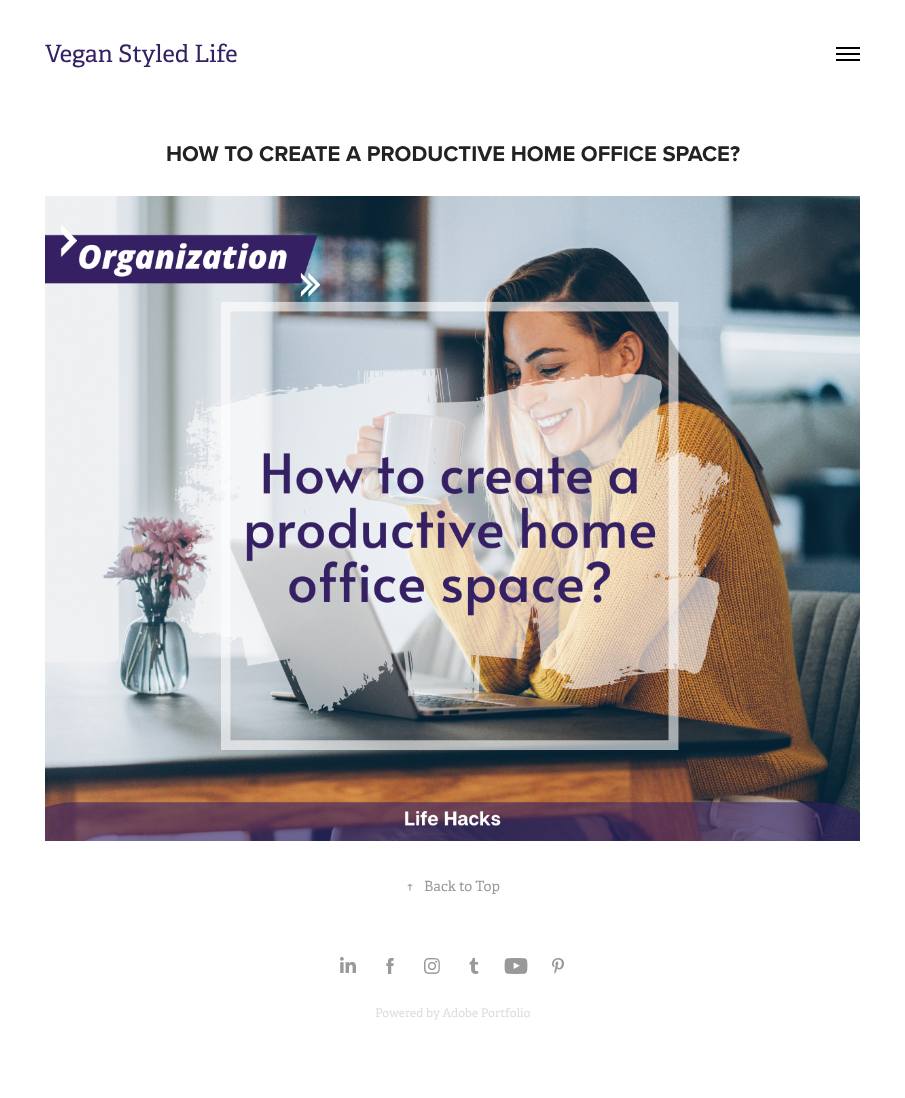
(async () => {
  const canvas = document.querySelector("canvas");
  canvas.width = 905;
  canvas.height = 1098;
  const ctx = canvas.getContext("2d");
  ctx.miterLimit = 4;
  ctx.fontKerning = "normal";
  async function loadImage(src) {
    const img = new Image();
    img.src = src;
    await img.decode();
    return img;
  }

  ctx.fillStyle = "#ffffff";
  ctx.fillRect(0, 0, 905, 1098);
  for (const [x, y, w, h, color] of [
    [836, 47, 24, 2, "#000000"],
    [836, 53, 24, 2, "#000000"],
    [836, 59, 24, 2, "#000000"],
  ]) {
    ctx.fillStyle = color;
    ctx.fillRect(x, y, w, h);
  }
  ctx.drawImage(await loadImage("img/1.png"), 45, 196, 815, 645);
  ctx.drawImage(await loadImage("img/2.png"), 340, 957, 16, 16);
  ctx.drawImage(await loadImage("img/3.png"), 386, 958, 8, 16);
  ctx.drawImage(await loadImage("img/4.png"), 424, 958, 16, 16);
  ctx.drawImage(await loadImage("img/5.png"), 469, 958, 10, 16);
  ctx.drawImage(await loadImage("img/6.png"), 504, 958, 24, 16);
  ctx.drawImage(await loadImage("img/7.png"), 552, 958, 12, 16);
  ctx.font = "24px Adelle";
  ctx.fillStyle = "#352063";
  ctx.fillText("Vegan Styled Life", 45, 62);
  ctx.font = "bold 22px Proxima Nova";
  ctx.fillStyle = "#222222";
  ctx.fillText("HOW TO CREATE A PRODUCTIVE HOME OFFICE SPACE?", 166, 161);
  ctx.font = "14px Adelle";
  ctx.fillStyle = "#999999";
  ctx.fillText("↑", 406, 891);
  ctx.fillText("Back to Top", 424, 891);
  ctx.font = "12px Adelle";
  ctx.fillStyle = "#dddddd";
  ctx.fillText("Powered by Adobe Portfolio", 375, 1017);
})();
